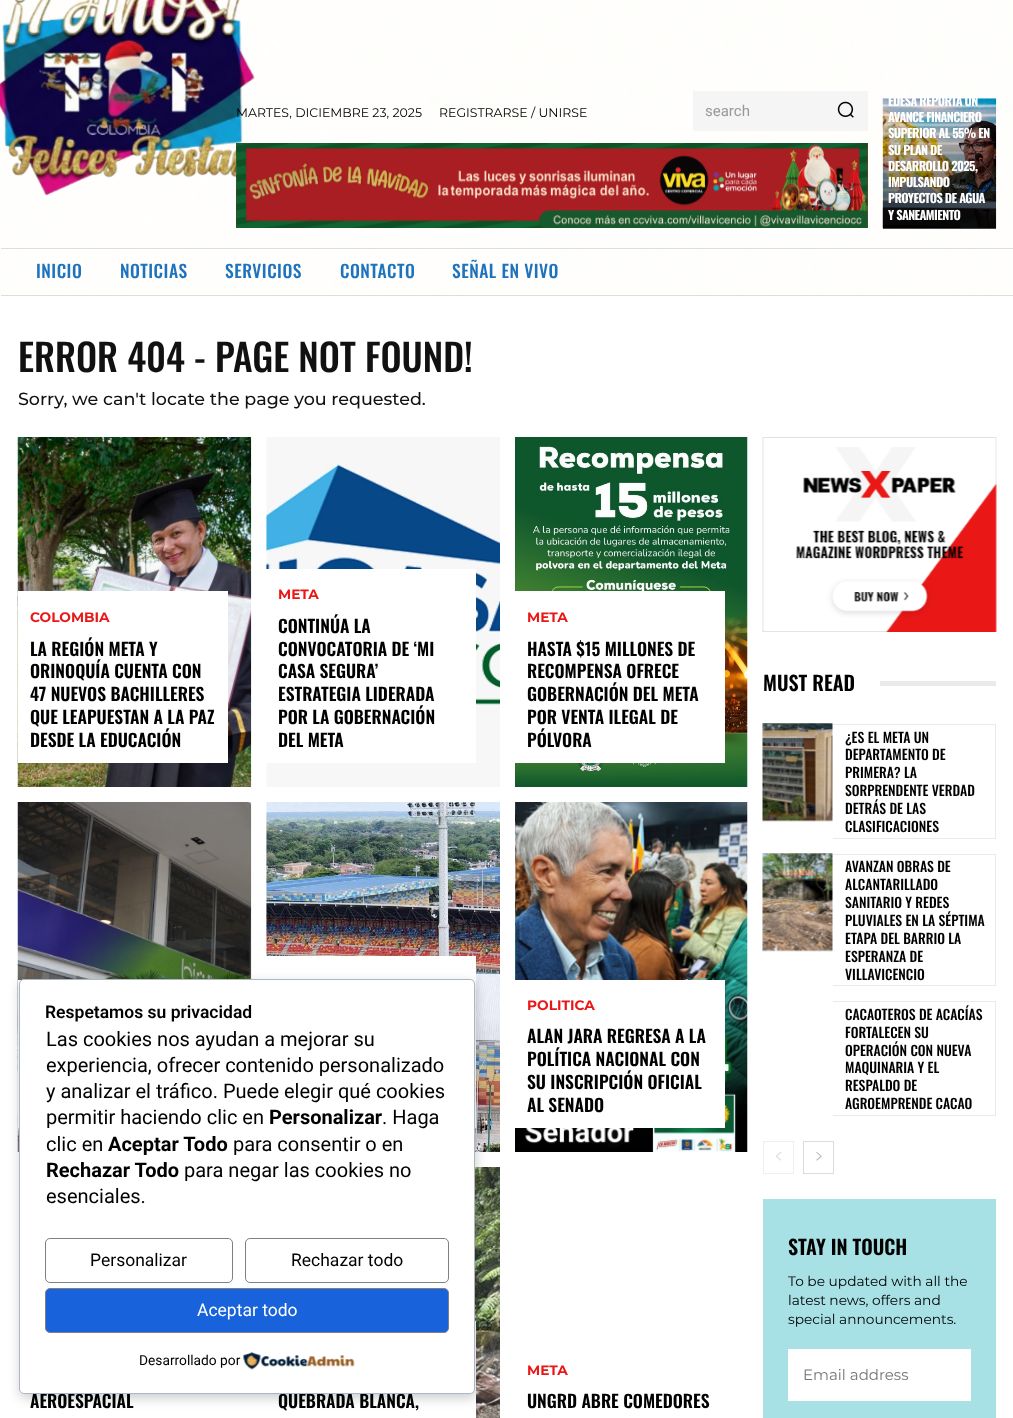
(async () => {
  const canvas = document.querySelector("canvas");
  canvas.width = 1013;
  canvas.height = 1418;
  const ctx = canvas.getContext("2d");
  ctx.miterLimit = 4;
  ctx.fontKerning = "normal";
  async function loadImage(src) {
    const img = new Image();
    img.src = src;
    await img.decode();
    return img;
  }
  let gradient;

  ctx.fillStyle = "#ffffff";
  ctx.fillRect(0, 0, 1013, 1418);
  ctx.drawImage(await loadImage("img/1.png"), 0, 0, 1013, 296);
  ctx.fillStyle = "rgba(255, 255, 255, 0.83)";
  ctx.fillRect(0, 0, 1013, 296);
  ctx.drawImage(await loadImage("img/2.png"), 0, 0, 255, 196);
  ctx.fillStyle = "#f5f5f5";
  ctx.fillRect(693, 91, 175, 40);
  ctx.drawImage(await loadImage("img/3.png"), 837, 101, 17, 17);
  ctx.drawImage(await loadImage("img/4.png"), 236, 143, 632, 85);
  ctx.drawImage(await loadImage("img/5.png"), 236, 143, 632, 85);
  ctx.drawImage(await loadImage("img/6.png"), 882, 98, 115, 131);
  gradient = ctx.createLinearGradient(939, 229, 939, 99);
  gradient.addColorStop(0, "rgba(0, 0, 0, 0.7)");
  gradient.addColorStop(1, "rgba(0, 0, 0, 0)");
  ctx.fillStyle = gradient;
  ctx.fillRect(883, 103, 113, 126);
  ctx.fillStyle = "#dddddd";
  ctx.fillRect(1, 248, 1012, 1);
  ctx.fillRect(1, 295, 1012, 1);
  ctx.drawImage(await loadImage("img/7.png"), 17, 437, 235, 350);
  ctx.fillStyle = "#ffffff";
  ctx.fillRect(18, 591, 210, 172);
  ctx.drawImage(await loadImage("img/8.png"), 17, 802, 235, 350);
  ctx.fillRect(18, 980, 3, 148);
  ctx.drawImage(await loadImage("img/9.png"), 266, 437, 234, 350);
  ctx.fillRect(266, 569, 210, 194);
  ctx.drawImage(await loadImage("img/10.png"), 266, 802, 234, 350);
  ctx.fillRect(266, 956, 210, 172);
  ctx.drawImage(await loadImage("img/11.png"), 475, 1167, 25, 251);
  ctx.fillRect(475, 1321, 1, 97);
  ctx.drawImage(await loadImage("img/12.png"), 515, 437, 233, 350);
  ctx.fillRect(515, 591, 210, 172);
  ctx.drawImage(await loadImage("img/13.png"), 515, 802, 233, 350);
  ctx.fillRect(515, 980, 210, 148);
  ctx.drawImage(await loadImage("img/14.png"), 762, 437, 235, 195);
  ctx.fillStyle = "#eaeaea";
  ctx.fillRect(880, 681, 116, 5);
  ctx.drawImage(await loadImage("img/15.png"), 762, 723, 71, 99);
  for (const [x, y, w, h, color] of [
    [833, 724, 163, 1, "#eaeaea"],
    [995, 724, 1, 115, "#eaeaea"],
    [833, 838, 163, 1, "#eaeaea"],
  ]) {
    ctx.fillStyle = color;
    ctx.fillRect(x, y, w, h);
  }
  ctx.drawImage(await loadImage("img/16.png"), 762, 853, 71, 99);
  for (const [x, y, w, h, color] of [
    [833, 854, 163, 1, "#eaeaea"],
    [995, 854, 1, 132, "#eaeaea"],
    [833, 985, 163, 1, "#eaeaea"],
    [833, 1001, 163, 1, "#eaeaea"],
    [995, 1001, 1, 115, "#eaeaea"],
    [833, 1115, 163, 1, "#eaeaea"],
  ]) {
    ctx.fillStyle = color;
    ctx.fillRect(x, y, w, h);
  }
  ctx.strokeStyle = "#eeeeee";
  ctx.strokeRect(763.5, 1141.5, 30, 32);
  ctx.drawImage(await loadImage("img/17.png"), 775, 1152, 7, 9);
  ctx.strokeStyle = "#dcdcdc";
  ctx.strokeRect(803.5, 1141.5, 30, 32);
  ctx.drawImage(await loadImage("img/18.png"), 816, 1152, 6, 9);
  ctx.fillStyle = "#a7e0e5";
  ctx.fillRect(763, 1199, 233, 219);
  ctx.fillStyle = "#ffffff";
  ctx.fillRect(788, 1349, 183, 52);
  ctx.fillStyle = "rgba(0, 0, 0, 0.2)";
  ctx.filter = "blur(6px)";
  ctx.beginPath();
  ctx.roundRect(20, 983, 456, 415, 5);
  ctx.fill();
  ctx.filter = "none";
  ctx.font = "12.5px Montserrat";
  ctx.fillStyle = "#000000";
  ctx.fillText("MARTES, DICIEMBRE 23, 2025", 236, 117);
  ctx.fillText("REGISTRARSE / UNIRSE", 439, 117);
  ctx.font = "15px Roboto";
  ctx.fillStyle = "#999999";
  ctx.fillText("search", 705, 116);
  ctx.letterSpacing = "-0.6px";
  ctx.font = "bold 12.5px Oswald";
  ctx.fillStyle = "#ffffff";
  for (const [text, x, y] of [
    ["EDESA REPORTA UN", 888, 106],
    ["AVANCE FINANCIERO", 888, 122],
    ["SUPERIOR AL 55% EN", 888, 138],
    ["SU PLAN DE", 888, 155],
    ["DESARROLLO 2025,", 888, 171],
    ["IMPULSANDO", 888, 187],
    ["PROYECTOS DE AGUA", 888, 203],
    ["Y SANEAMIENTO", 888, 220],
  ]) {
    ctx.fillText(text, x, y);
  }
  ctx.letterSpacing = "0.5px";
  ctx.font = "500 17.5px Oswald";
  ctx.fillStyle = "#1e73be";
  for (const [text, x, y] of [
    ["INICIO", 36, 278],
    ["NOTICIAS", 120, 278],
    ["SERVICIOS", 225, 278],
    ["CONTACTO", 340, 278],
    ["SEÑAL EN VIVO", 452, 278],
  ]) {
    ctx.fillText(text, x, y);
  }
  ctx.letterSpacing = "0px";
  ctx.font = "500 37.5px Oswald";
  ctx.fillStyle = "#111111";
  ctx.fillText("ERROR 404 - PAGE NOT FOUND!", 18, 372);
  ctx.font = "500 17.5px Montserrat";
  ctx.fillText("Sorry, we can't locate the page you requested.", 18, 405);
  ctx.font = "bold 13.75px Montserrat";
  ctx.fillStyle = "#ea1717";
  ctx.fillText("COLOMBIA", 30, 622);
  ctx.font = "600 17.5px Oswald";
  ctx.fillStyle = "#000000";
  for (const [text, x, y] of [
    ["LA REGIÓN META Y", 30, 656],
    ["ORINOQUÍA CUENTA CON", 30, 678],
    ["47 NUEVOS BACHILLERES", 30, 701],
    ["QUE LEAPUESTAN A LA PAZ", 30, 724],
    ["DESDE LA EDUCACIÓN", 30, 747],
    ["AEROESPACIAL", 30, 1408],
  ]) {
    ctx.fillText(text, x, y);
  }
  ctx.font = "bold 13.75px Montserrat";
  ctx.fillStyle = "#ea1717";
  ctx.fillText("META", 278, 599);
  ctx.font = "600 17.5px Oswald";
  ctx.fillStyle = "#000000";
  for (const [text, x, y] of [
    ["CONTINÚA LA", 278, 633],
    ["CONVOCATORIA DE ‘MI", 278, 656],
    ["CASA SEGURA’", 278, 678],
    ["ESTRATEGIA LIDERADA", 278, 701],
    ["POR LA GOBERNACIÓN", 278, 724],
    ["DEL META", 278, 747],
    ["QUEBRADA BLANCA,", 278, 1408],
  ]) {
    ctx.fillText(text, x, y);
  }
  ctx.font = "bold 13.75px Montserrat";
  ctx.fillStyle = "#ea1717";
  ctx.fillText("META", 527, 622);
  ctx.font = "600 17.5px Oswald";
  ctx.fillStyle = "#000000";
  for (const [text, x, y] of [
    ["HASTA $15 MILLONES DE", 527, 656],
    ["RECOMPENSA OFRECE", 527, 678],
    ["GOBERNACIÓN DEL META", 527, 701],
    ["POR VENTA ILEGAL DE", 527, 724],
    ["PÓLVORA", 527, 747],
  ]) {
    ctx.fillText(text, x, y);
  }
  ctx.font = "bold 13.75px Montserrat";
  ctx.fillStyle = "#ea1717";
  ctx.fillText("POLITICA", 527, 1010);
  ctx.font = "600 17.5px Oswald";
  ctx.fillStyle = "#000000";
  for (const [text, x, y] of [
    ["ALAN JARA REGRESA A LA", 527, 1043],
    ["POLÍTICA NACIONAL CON", 527, 1066],
    ["SU INSCRIPCIÓN OFICIAL", 527, 1089],
    ["AL SENADO", 527, 1112],
  ]) {
    ctx.fillText(text, x, y);
  }
  ctx.font = "bold 13.75px Montserrat";
  ctx.fillStyle = "#ea1717";
  ctx.fillText("META", 527, 1375);
  ctx.font = "600 17.5px Oswald";
  ctx.fillStyle = "#000000";
  ctx.fillText("UNGRD ABRE COMEDORES", 527, 1408);
  ctx.font = "600 20px Oswald";
  ctx.fillText("MUST READ", 763, 691);
  ctx.font = "500 13.75px Oswald";
  for (const [text, x, y] of [
    ["¿ES EL META UN", 845, 743],
    ["DEPARTAMENTO DE", 845, 760],
    ["PRIMERA? LA", 845, 778],
    ["SORPRENDENTE VERDAD", 845, 796],
    ["DETRÁS DE LAS", 845, 814],
    ["CLASIFICACIONES", 845, 832],
    ["AVANZAN OBRAS DE", 845, 872],
    ["ALCANTARILLADO", 845, 890],
    ["SANITARIO Y REDES", 845, 908],
    ["PLUVIALES EN LA SÉPTIMA", 845, 926],
    ["ETAPA DEL BARRIO LA", 845, 944],
    ["ESPERANZA DE", 845, 962],
    ["VILLAVICENCIO", 845, 980],
    ["CACAOTEROS DE ACACÍAS", 845, 1020],
    ["FORTALECEN SU", 845, 1038],
    ["OPERACIÓN CON NUEVA", 845, 1056],
    ["MAQUINARIA Y EL", 845, 1073],
    ["RESPALDO DE", 845, 1091],
    ["AGROEMPRENDE CACAO", 845, 1109],
  ]) {
    ctx.fillText(text, x, y);
  }
  ctx.font = "600 20px Oswald";
  ctx.fillText("STAY IN TOUCH", 788, 1255);
  ctx.font = "13.75px Montserrat";
  for (const [text, x, y] of [
    ["To be updated with all the", 788, 1286],
    ["latest news, offers and", 788, 1305],
    ["special announcements.", 788, 1324],
  ]) {
    ctx.fillText(text, x, y);
  }
  ctx.font = "15px Montserrat";
  ctx.fillStyle = "#757575";
  ctx.fillText("Email address", 803, 1380);
  ctx.fillStyle = "#ffffff";
  ctx.beginPath();
  ctx.roundRect(19.5, 979.5, 455, 414, 4.5);
  ctx.fill();
  ctx.strokeStyle = "#abb8c3";
  ctx.stroke();
  ctx.font = "600 17.5px Roboto";
  ctx.fillStyle = "#000000";
  ctx.fillText("Respetamos su privacidad", 45, 1018);
  ctx.font = "20px Roboto";
  for (const [text, x, y] of [
    ["Las cookies nos ayudan a mejorar su", 46, 1046],
    ["experiencia, ofrecer contenido personalizado", 46, 1072],
    ["y analizar el tráfico. Puede elegir qué cookies", 46, 1098],
    ["permitir haciendo clic en", 46, 1124],
  ]) {
    ctx.fillText(text, x, y);
  }
  ctx.font = "bold 20px Roboto";
  ctx.fillText("Personalizar", 269, 1124);
  ctx.font = "20px Roboto";
  ctx.fillText(". Haga", 382, 1124);
  ctx.fillText("clic en", 46, 1151);
  ctx.font = "bold 20px Roboto";
  ctx.fillText("Aceptar Todo", 108, 1151);
  ctx.font = "20px Roboto";
  ctx.fillText("para consentir o en", 233, 1151);
  ctx.font = "bold 20px Roboto";
  ctx.fillText("Rechazar Todo", 46, 1177);
  ctx.font = "20px Roboto";
  ctx.fillText("para negar las cookies no", 184, 1177);
  ctx.fillText("esenciales.", 46, 1203);
  ctx.beginPath();
  ctx.roundRect(45.5, 1238.5, 187, 44, 4.5);
  ctx.strokeStyle = "#808080";
  ctx.stroke();
  ctx.font = "17.5px Roboto";
  ctx.fillText("Personalizar", 90, 1266);
  ctx.beginPath();
  ctx.roundRect(245.5, 1238.5, 203, 44, 4.5);
  ctx.stroke();
  ctx.fillText("Rechazar todo", 291, 1266);
  ctx.fillStyle = "#1863dc";
  ctx.beginPath();
  ctx.roundRect(45.5, 1288.5, 403, 44, 4.5);
  ctx.fill();
  ctx.stroke();
  ctx.fillStyle = "#ffffff";
  ctx.fillText("Aceptar todo", 197, 1316);
  ctx.font = "13.75px Roboto";
  ctx.fillStyle = "#000000";
  ctx.fillText("Desarrollado por", 139, 1365);
  ctx.drawImage(await loadImage("img/19.png"), 243, 1352, 112, 18);
})();
